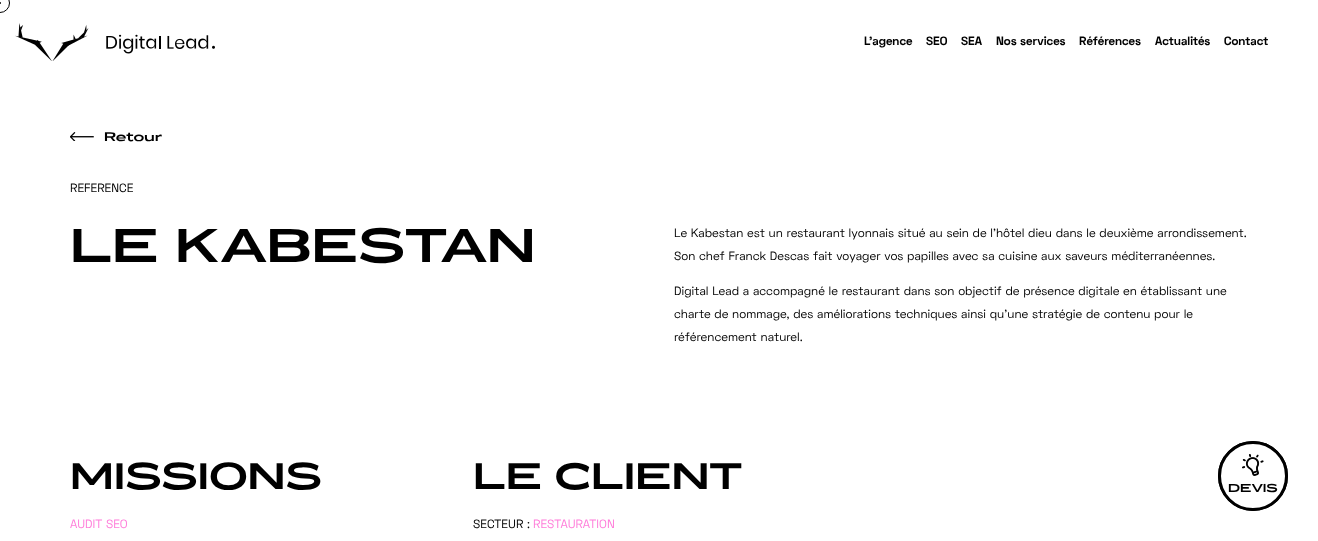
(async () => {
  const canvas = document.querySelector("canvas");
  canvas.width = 1318;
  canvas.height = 541;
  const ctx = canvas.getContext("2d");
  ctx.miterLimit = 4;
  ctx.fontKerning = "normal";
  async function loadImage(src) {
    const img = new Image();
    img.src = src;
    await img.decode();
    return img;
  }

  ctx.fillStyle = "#ffffff";
  ctx.fillRect(0, 0, 1318, 541);
  ctx.beginPath();
  ctx.arc(0, 3, 9.5, 0, Math.PI * 2);
  ctx.strokeStyle = "#000000";
  ctx.stroke();
  ctx.fillStyle = "#000000";
  ctx.beginPath();
  ctx.arc(0, 3, 1, 0, Math.PI * 2);
  ctx.fill();
  ctx.drawImage(await loadImage("img/1.png"), 15, 23, 200, 38);
  ctx.drawImage(await loadImage("img/2.png"), 70, 132, 24, 9);
  ctx.beginPath();
  ctx.arc(1253, 476, 33.5, 0, Math.PI * 2);
  ctx.lineWidth = 3;
  ctx.stroke();
  ctx.fillStyle = "#ffffff";
  ctx.beginPath();
  ctx.arc(1253, 476, 33.5, 0, Math.PI * 2);
  ctx.fill();
  ctx.stroke();
  ctx.drawImage(await loadImage("img/3.png"), 1242, 454, 22, 22);
  ctx.font = "bold 12px Space Grotesk";
  ctx.fillStyle = "#000000";
  for (const [text, x, y] of [
    ["L’agence", 864, 45],
    ["SEO", 926, 45],
    ["SEA", 961, 45],
    ["Nos services", 996, 45],
    ["Références", 1079, 45],
    ["Actualités", 1155, 45],
    ["Contact", 1224, 45],
  ]) {
    ctx.fillText(text, x, y);
  }
  ctx.font = "bold 12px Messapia";
  ctx.fillText("Retour", 104, 141);
  ctx.font = "12px Space Grotesk";
  ctx.fillText("REFERENCE", 70, 192);
  ctx.font = "bold 45px Messapia";
  ctx.fillText("LE KABESTAN", 70, 262);
  ctx.font = "12px Space Grotesk";
  for (const [text, x, y] of [
    ["Le Kabestan est un restaurant lyonnais situé au sein de l’hôtel dieu dans le deuxième arrondissement.", 674, 237],
    ["Son chef Franck Descas fait voyager vos papilles avec sa cuisine aux saveurs méditerranéennes.", 674, 260],
    ["Digital Lead a accompagné le restaurant dans son objectif de présence digitale en établissant une", 674, 295],
    ["charte de nommage, des améliorations techniques ainsi qu’une stratégie de contenu pour le", 674, 318],
    ["référencement naturel.", 674, 341],
  ]) {
    ctx.fillText(text, x, y);
  }
  ctx.font = "bold 35px Messapia";
  ctx.fillText("MISSIONS", 70, 489);
  ctx.font = "12px Space Grotesk";
  ctx.fillStyle = "#ff7dda";
  ctx.fillText("AUDIT SEO", 70, 528);
  ctx.font = "bold 35px Messapia";
  ctx.fillStyle = "#000000";
  ctx.fillText("LE CLIENT", 473, 489);
  ctx.font = "12px Space Grotesk";
  ctx.fillText("SECTEUR :", 473, 528);
  ctx.fillStyle = "#ff7dda";
  ctx.fillText("RESTAURATION", 533, 528);
  ctx.font = "bold 11px Messapia";
  ctx.fillStyle = "#000000";
  ctx.fillText("DEVIS", 1228, 492);
})();
